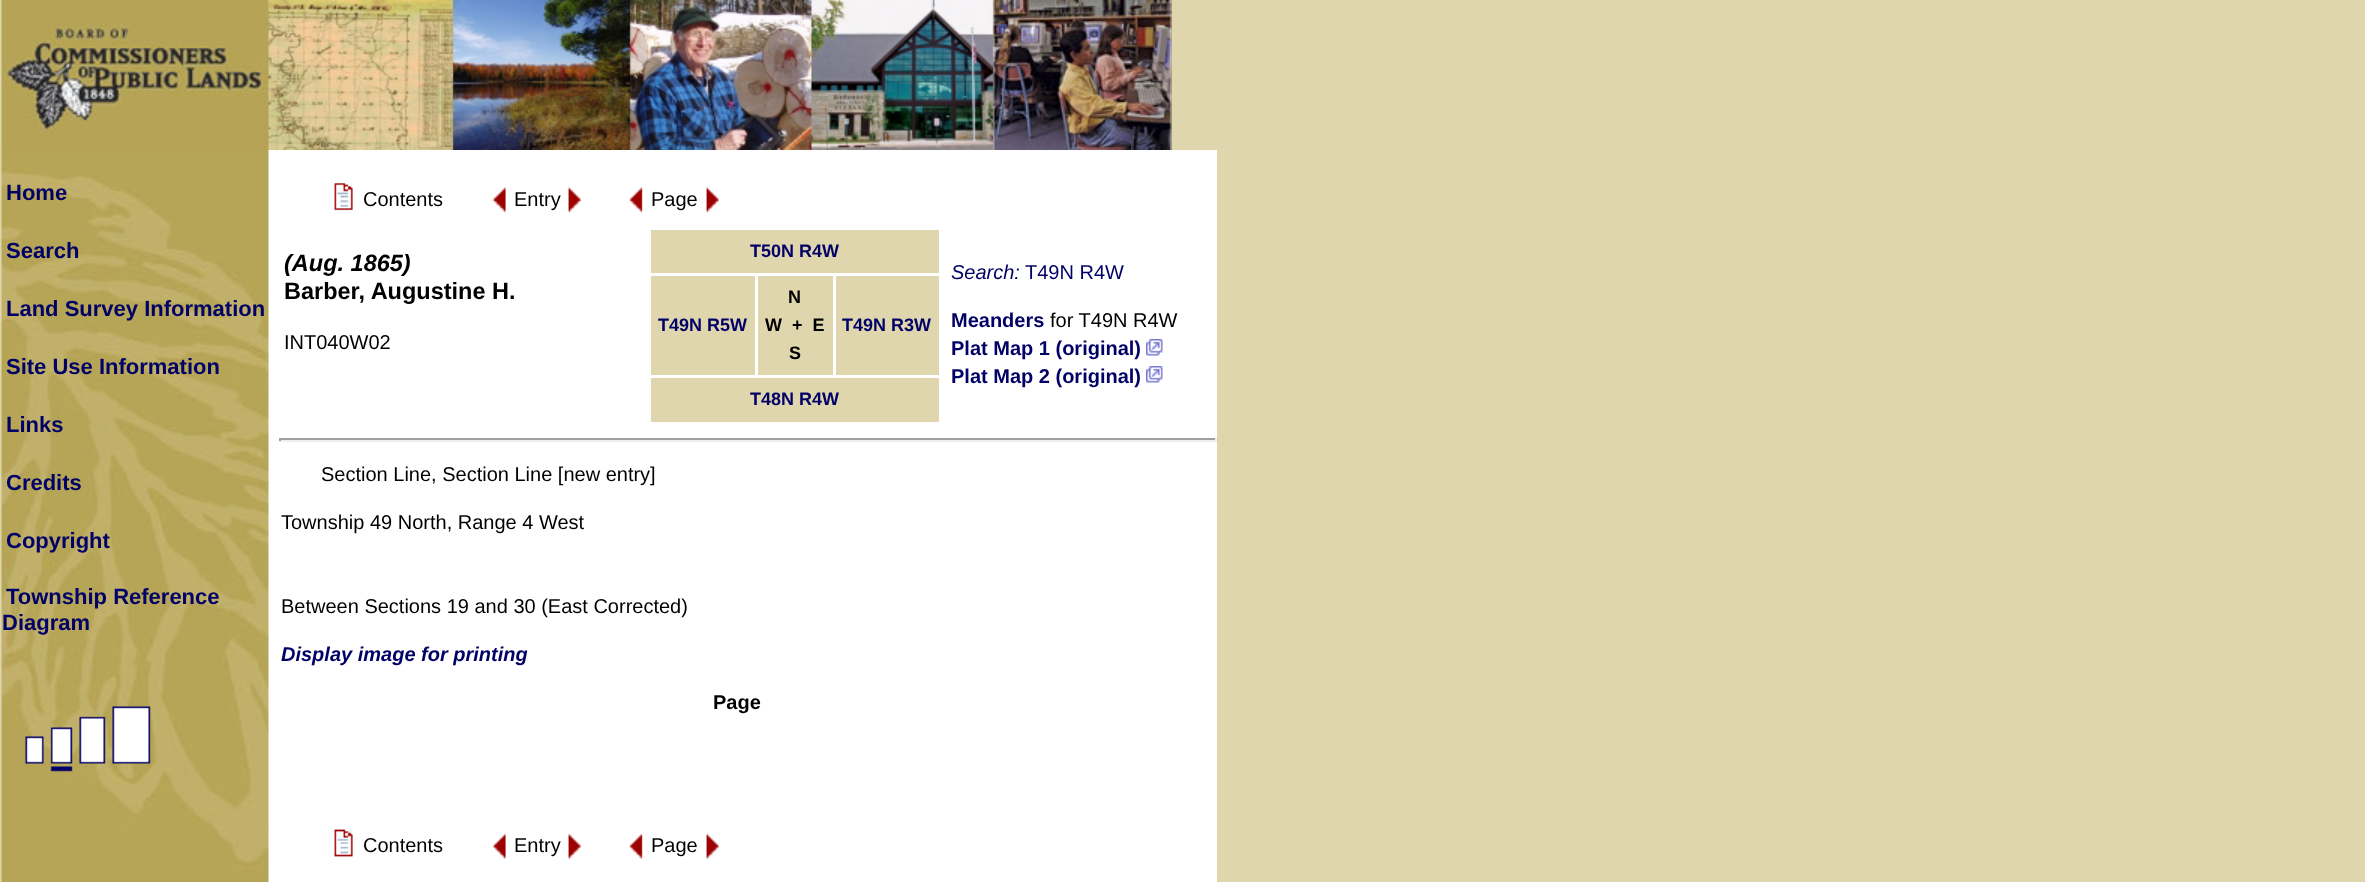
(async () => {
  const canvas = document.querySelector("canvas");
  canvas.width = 2365;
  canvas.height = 882;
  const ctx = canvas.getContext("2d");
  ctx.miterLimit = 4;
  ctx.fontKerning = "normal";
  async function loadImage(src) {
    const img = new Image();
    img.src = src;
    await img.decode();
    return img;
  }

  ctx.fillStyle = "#dfd6ae";
  ctx.fillRect(0, 0, 2365, 882);
  ctx.fillStyle = "#b6a557";
  ctx.fillRect(1171, 0, 1, 150);
  ctx.drawImage(await loadImage("img/1.png"), 1, 0, 1171, 150);
  ctx.fillStyle = "#ffffff";
  ctx.fillRect(268, 150, 949, 732);
  ctx.drawImage(await loadImage("img/2.png"), 1, 150, 268, 732);
  ctx.drawImage(await loadImage("img/3.png"), 25, 736, 19, 28);
  ctx.drawImage(await loadImage("img/4.png"), 50, 727, 23, 45);
  ctx.drawImage(await loadImage("img/5.png"), 79, 716, 27, 48);
  ctx.drawImage(await loadImage("img/6.png"), 112, 706, 39, 58);
  ctx.drawImage(await loadImage("img/7.png"), 334, 183, 19, 28);
  ctx.drawImage(await loadImage("img/8.png"), 493, 187, 13, 27);
  ctx.drawImage(await loadImage("img/9.png"), 568, 187, 13, 27);
  ctx.drawImage(await loadImage("img/10.png"), 629, 187, 14, 27);
  ctx.drawImage(await loadImage("img/9.png"), 706, 187, 13, 27);
  ctx.fillStyle = "#dfd6ae";
  ctx.fillRect(651, 230, 288, 43);
  ctx.drawImage(await loadImage("img/11.png"), 1146, 339, 17, 17);
  ctx.drawImage(await loadImage("img/11.png"), 1146, 366, 17, 17);
  for (const [x, y, w, h, color] of [
    [651, 276, 104, 99, "#dfd6ae"],
    [758, 276, 75, 99, "#dfd6ae"],
    [836, 276, 103, 99, "#dfd6ae"],
    [651, 378, 288, 44, "#dfd6ae"],
    [279, 438, 938, 2, "#9f9f9f"],
    [1215, 438, 2, 3, "#eeeeee"],
    [279, 440, 938, 2, "#eeeeee"],
    [279, 438, 2, 3, "#9f9f9f"],
  ]) {
    ctx.fillStyle = color;
    ctx.fillRect(x, y, w, h);
  }
  ctx.drawImage(await loadImage("img/12.png"), 334, 829, 19, 28);
  ctx.drawImage(await loadImage("img/13.png"), 493, 833, 13, 27);
  ctx.drawImage(await loadImage("img/14.png"), 568, 833, 13, 27);
  ctx.drawImage(await loadImage("img/15.png"), 629, 833, 14, 27);
  ctx.drawImage(await loadImage("img/14.png"), 706, 833, 13, 27);
  ctx.font = "bold 22px Liberation Sans";
  ctx.fillStyle = "#000066";
  for (const [text, x, y] of [
    ["Home", 6, 200],
    ["Search", 6, 258],
    ["Land Survey Information", 6, 316],
    ["Site Use Information", 6, 374],
    ["Links", 6, 432],
    ["Credits", 6, 490],
    ["Copyright", 6, 548],
    ["Township Reference", 6, 604],
    ["Diagram", 2, 630],
  ]) {
    ctx.fillText(text, x, y);
  }
  ctx.font = "20px Liberation Sans";
  ctx.fillStyle = "#000000";
  for (const [text, x, y] of [
    ["Contents", 363, 206],
    ["Entry", 514, 206],
    ["Page", 651, 206],
  ]) {
    ctx.fillText(text, x, y);
  }
  ctx.font = "italic bold 23.5px Liberation Sans";
  ctx.fillText("(Aug. 1865)", 284, 271);
  ctx.font = "bold 23.5px Liberation Sans";
  ctx.fillText("Barber, Augustine H.", 284, 299);
  ctx.font = "20px Liberation Sans";
  ctx.fillText("INT040W02", 284, 349);
  ctx.font = "bold 18px Liberation Sans";
  ctx.fillStyle = "#000066";
  ctx.fillText("T50N R4W", 750, 257);
  ctx.font = "italic 20px Liberation Sans";
  ctx.fillText("Search:", 951, 279);
  ctx.font = "20px Liberation Sans";
  ctx.fillText("T49N R4W", 1025, 279);
  ctx.font = "bold 20px Liberation Sans";
  ctx.fillText("Meanders", 951, 327);
  ctx.font = "20px Liberation Sans";
  ctx.fillStyle = "#000000";
  ctx.fillText("for T49N R4W", 1050, 327);
  ctx.font = "bold 20px Liberation Sans";
  ctx.fillStyle = "#000066";
  ctx.fillText("Plat Map 1 (original)", 951, 355);
  ctx.fillText("Plat Map 2 (original)", 951, 383);
  ctx.font = "bold 18px Liberation Sans";
  ctx.fillText("T49N R5W", 658, 331);
  ctx.fillStyle = "#000000";
  for (const [text, x, y] of [
    ["N", 788, 303],
    ["W  +  E", 765, 331],
    ["S", 789, 359],
  ]) {
    ctx.fillText(text, x, y);
  }
  ctx.fillStyle = "#000066";
  ctx.fillText("T49N R3W", 842, 331);
  ctx.fillText("T48N R4W", 750, 405);
  ctx.font = "20px Liberation Sans";
  ctx.fillStyle = "#000000";
  for (const [text, x, y] of [
    ["Section Line, Section Line [new entry]", 321, 481],
    ["Township 49 North, Range 4 West", 281, 529],
    ["Between Sections 19 and 30 (East Corrected)", 281, 613],
  ]) {
    ctx.fillText(text, x, y);
  }
  ctx.font = "italic bold 20px Liberation Sans";
  ctx.fillStyle = "#000066";
  ctx.fillText("Display image for printing", 281, 661);
  ctx.font = "bold 20px Liberation Sans";
  ctx.fillStyle = "#000000";
  ctx.fillText("Page", 713, 709);
  ctx.font = "20px Liberation Sans";
  for (const [text, x, y] of [
    ["Contents", 363, 852],
    ["Entry", 514, 852],
    ["Page", 651, 852],
  ]) {
    ctx.fillText(text, x, y);
  }
})();
